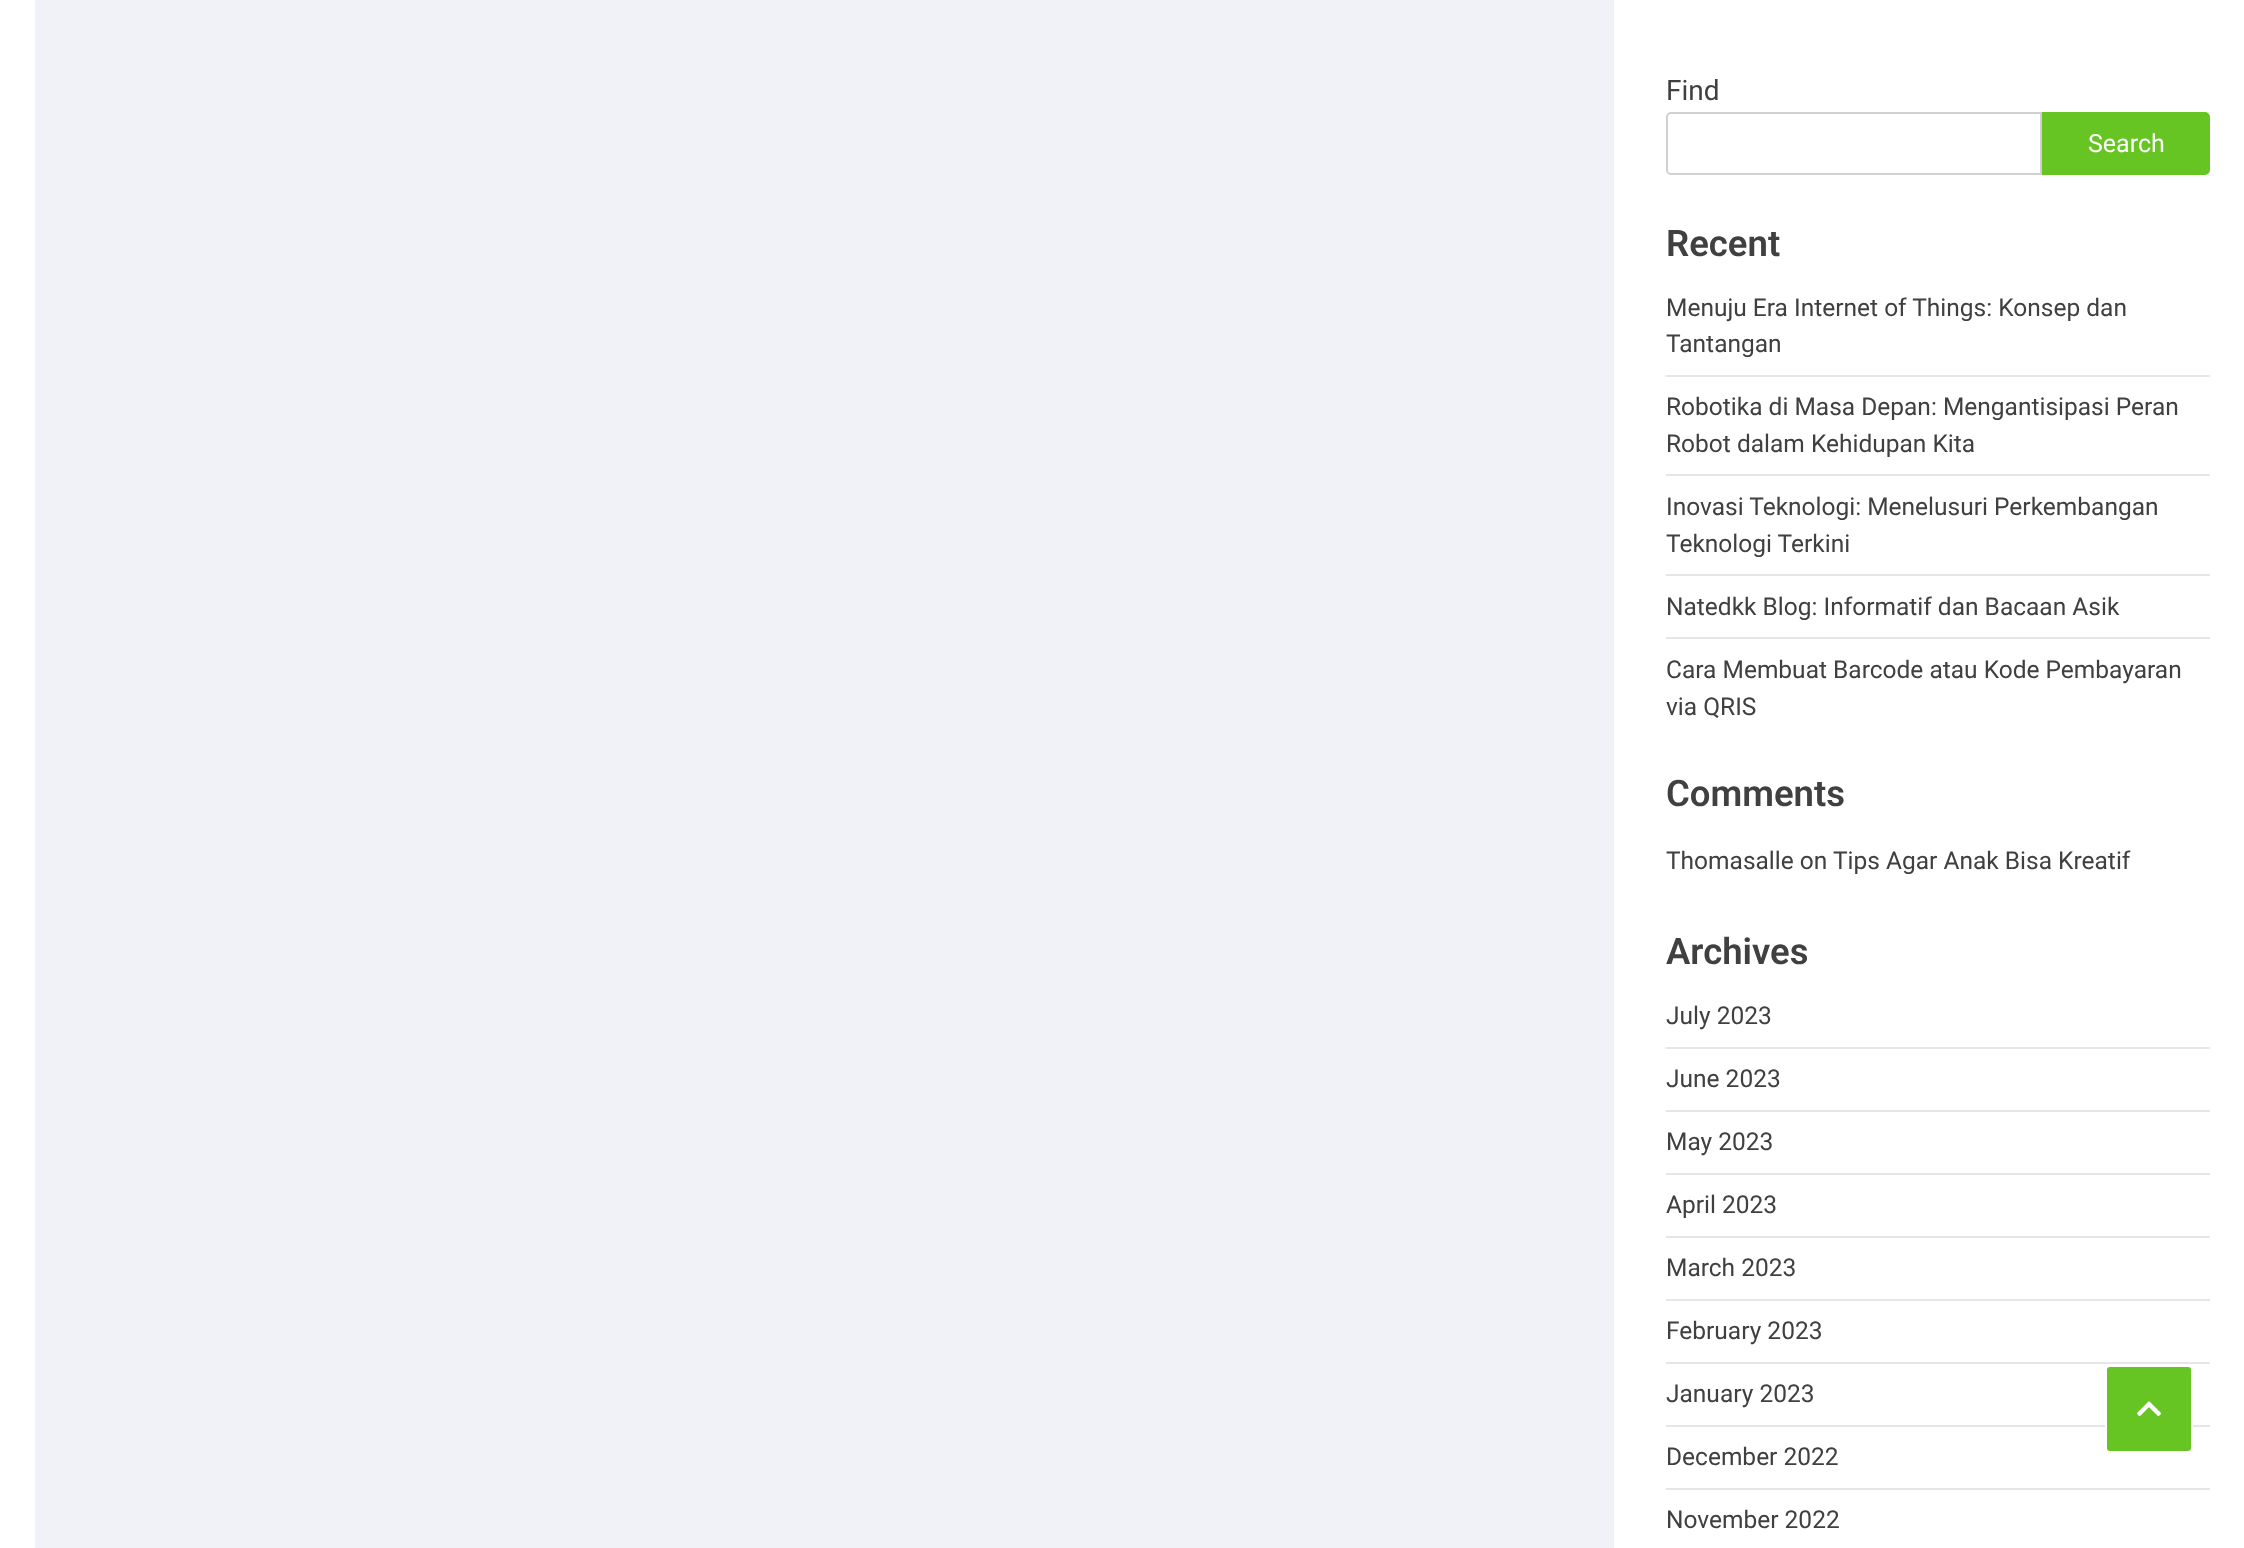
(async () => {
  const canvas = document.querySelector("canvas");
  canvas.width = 2244;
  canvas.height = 1548;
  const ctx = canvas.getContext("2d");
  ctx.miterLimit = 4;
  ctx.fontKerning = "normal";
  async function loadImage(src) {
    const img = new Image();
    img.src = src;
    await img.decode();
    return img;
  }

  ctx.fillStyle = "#ffffff";
  ctx.fillRect(0, 0, 2244, 1548);
  ctx.fillStyle = "#f0f2f7";
  ctx.fillRect(35, 0, 1579, 1548);
  ctx.beginPath();
  ctx.roundRect(1667, 113, 374, 61, [4, 0, 0, 4]);
  ctx.strokeStyle = "#d3ced2";
  ctx.lineWidth = 2;
  ctx.stroke();
  ctx.fillStyle = "#66c423";
  ctx.beginPath();
  ctx.roundRect(2043, 113, 166, 61, [0, 4, 4, 0]);
  ctx.fill();
  ctx.strokeStyle = "#66c423";
  ctx.stroke();
  for (const [x, y, w, h, color] of [
    [1666, 375, 544, 2, "#e6e6e6"],
    [1666, 474, 544, 2, "#e6e6e6"],
    [1666, 574, 544, 2, "#e6e6e6"],
    [1666, 637, 544, 2, "#e6e6e6"],
    [1666, 1047, 544, 2, "#e6e6e6"],
    [1666, 1110, 544, 2, "#e6e6e6"],
    [1666, 1173, 544, 2, "#e6e6e6"],
    [1666, 1236, 544, 2, "#e6e6e6"],
    [1666, 1299, 544, 2, "#e6e6e6"],
    [1666, 1362, 544, 2, "#e6e6e6"],
    [1666, 1425, 544, 2, "#e6e6e6"],
    [1666, 1488, 544, 2, "#e6e6e6"],
  ]) {
    ctx.fillStyle = color;
    ctx.fillRect(x, y, w, h);
  }
  ctx.fillStyle = "#66c423";
  ctx.beginPath();
  ctx.roundRect(2106, 1366, 86, 86, 4);
  ctx.fill();
  ctx.strokeStyle = "#ffffff";
  ctx.stroke();
  ctx.drawImage(await loadImage("img/1.png"), 2137, 1401, 24, 15);
  ctx.font = "28px Roboto";
  ctx.fillStyle = "#404040";
  ctx.fillText("Find", 1666, 100);
  ctx.font = "25px Roboto";
  ctx.fillStyle = "#ffffff";
  ctx.fillText("Search", 2088, 152);
  ctx.font = "600 36.5px Roboto";
  ctx.fillStyle = "#404040";
  ctx.fillText("Recent", 1666, 256);
  ctx.font = "24.5px Roboto";
  for (const [text, x, y] of [
    ["Menuju Era Internet of Things: Konsep dan", 1666, 316],
    ["Tantangan", 1666, 352],
    ["Robotika di Masa Depan: Mengantisipasi Peran", 1666, 415],
    ["Robot dalam Kehidupan Kita", 1666, 452],
    ["Inovasi Teknologi: Menelusuri Perkembangan", 1666, 515],
    ["Teknologi Terkini", 1666, 552],
    ["Natedkk Blog: Informatif dan Bacaan Asik", 1666, 615],
    ["Cara Membuat Barcode atau Kode Pembayaran", 1666, 678],
    ["via QRIS", 1666, 715],
  ]) {
    ctx.fillText(text, x, y);
  }
  ctx.font = "600 36.5px Roboto";
  ctx.fillText("Comments", 1666, 806);
  ctx.font = "24.5px Roboto";
  ctx.fillText("Thomasalle on", 1666, 869);
  ctx.fillText("Tips Agar Anak Bisa Kreatif", 1833, 869);
  ctx.font = "600 36.5px Roboto";
  ctx.fillText("Archives", 1666, 964);
  ctx.font = "24.5px Roboto";
  for (const [text, x, y] of [
    ["July 2023", 1666, 1024],
    ["June 2023", 1666, 1087],
    ["May 2023", 1666, 1150],
    ["April 2023", 1666, 1213],
    ["March 2023", 1666, 1276],
    ["February 2023", 1666, 1339],
    ["January 2023", 1666, 1402],
    ["December 2022", 1666, 1465],
    ["November 2022", 1666, 1528],
  ]) {
    ctx.fillText(text, x, y);
  }
})();
